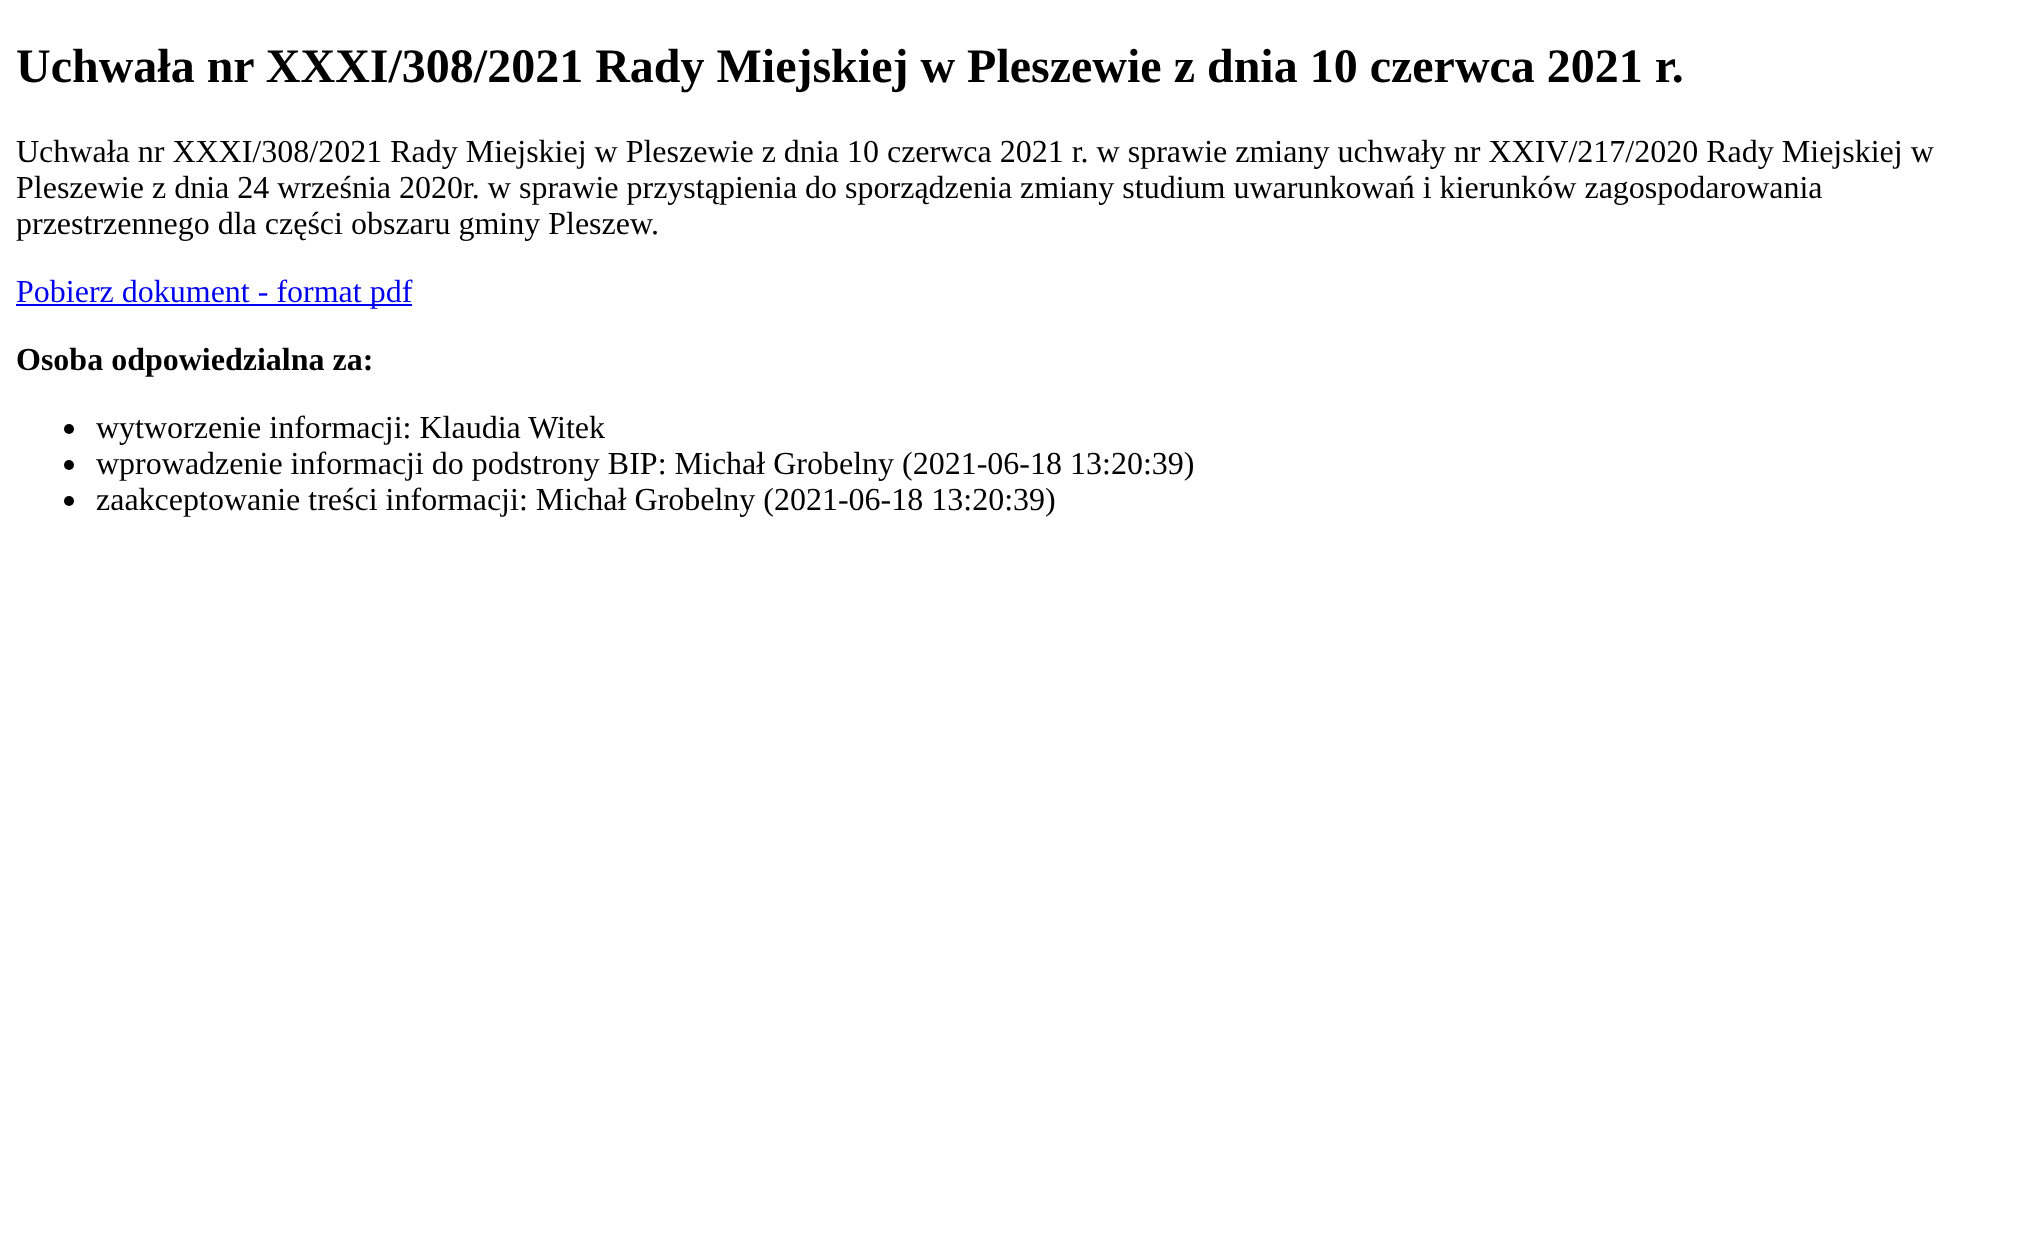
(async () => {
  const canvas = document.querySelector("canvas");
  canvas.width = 2027;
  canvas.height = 1258;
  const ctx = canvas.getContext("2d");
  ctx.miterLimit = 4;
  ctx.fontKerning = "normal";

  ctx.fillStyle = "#ffffff";
  ctx.fillRect(0, 0, 2027, 1258);
  ctx.fillStyle = "#0000ee";
  ctx.fillRect(16, 304, 396, 2);
  ctx.fillStyle = "#000000";
  ctx.beginPath();
  ctx.arc(69, 429, 5, 0, Math.PI * 2);
  ctx.fill();
  ctx.beginPath();
  ctx.arc(69, 465, 5, 0, Math.PI * 2);
  ctx.fill();
  ctx.beginPath();
  ctx.arc(69, 501, 5, 0, Math.PI * 2);
  ctx.fill();
  ctx.font = "bold 48px Liberation Serif";
  ctx.fillText("Uchwała nr XXXI/308/2021 Rady Miejskiej w Pleszewie z dnia 10 czerwca 2021 r.", 16, 82);
  ctx.font = "32px Liberation Serif";
  for (const [text, x, y] of [
    ["Uchwała nr XXXI/308/2021 Rady Miejskiej w Pleszewie z dnia 10 czerwca 2021 r. w sprawie zmiany uchwały nr XXIV/217/2020 Rady Miejskiej w", 16, 162],
    ["Pleszewie z dnia 24 września 2020r. w sprawie przystąpienia do sporządzenia zmiany studium uwarunkowań i kierunków zagospodarowania", 16, 198],
    ["przestrzennego dla części obszaru gminy Pleszew.", 16, 234],
  ]) {
    ctx.fillText(text, x, y);
  }
  ctx.fillStyle = "#0000ee";
  ctx.fillText("Pobierz dokument - format pdf", 16, 302);
  ctx.font = "bold 32px Liberation Serif";
  ctx.fillStyle = "#000000";
  ctx.fillText("Osoba odpowiedzialna za:", 16, 370);
  ctx.font = "32px Liberation Serif";
  for (const [text, x, y] of [
    ["wytworzenie informacji: Klaudia Witek", 96, 438],
    ["wprowadzenie informacji do podstrony BIP: Michał Grobelny (2021-06-18 13:20:39)", 96, 474],
    ["zaakceptowanie treści informacji: Michał Grobelny (2021-06-18 13:20:39)", 96, 510],
  ]) {
    ctx.fillText(text, x, y);
  }
})();
